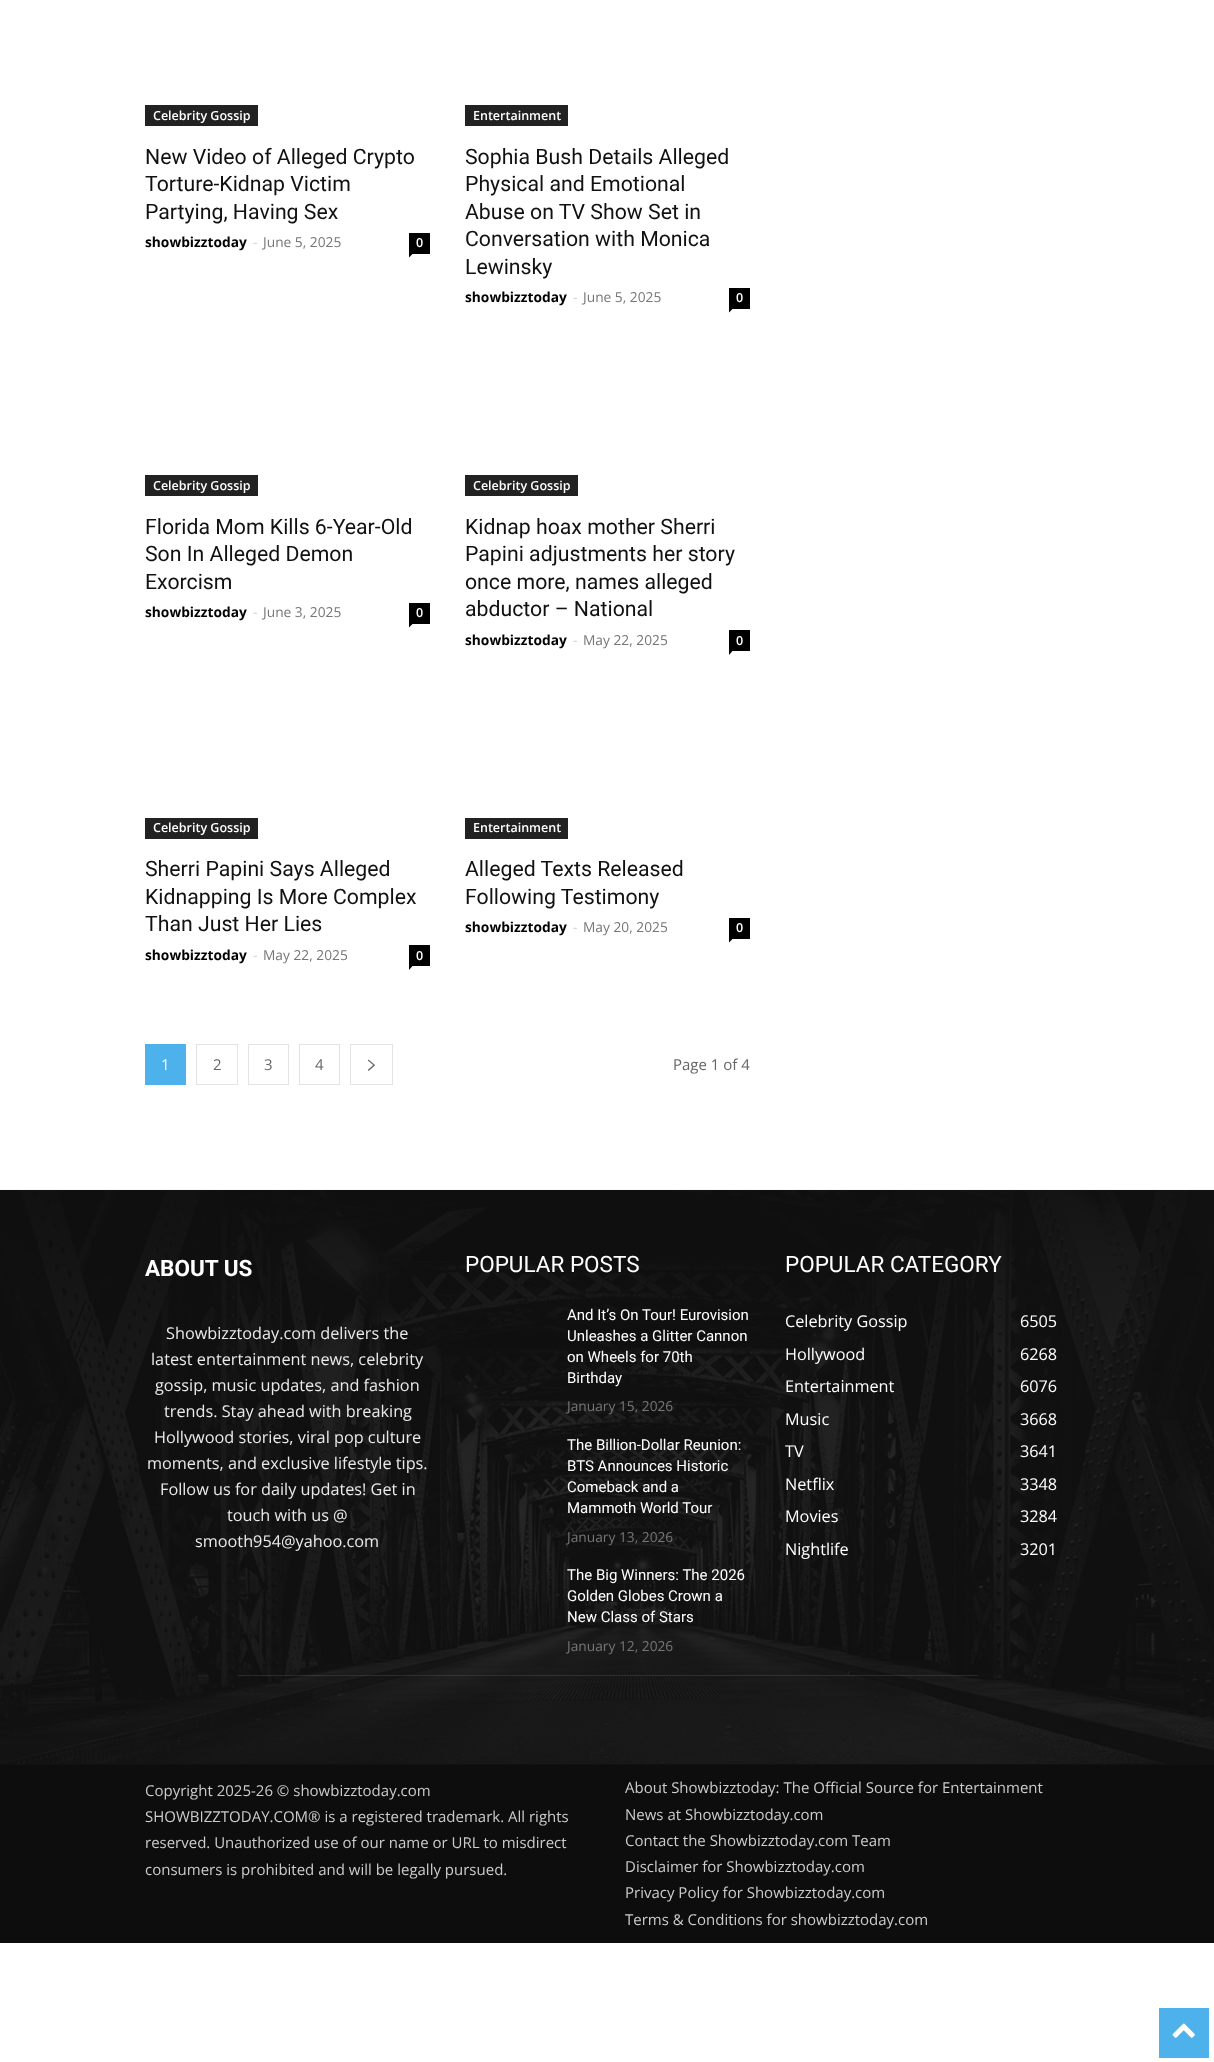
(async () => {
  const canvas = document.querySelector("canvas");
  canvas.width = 1214;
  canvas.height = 2062;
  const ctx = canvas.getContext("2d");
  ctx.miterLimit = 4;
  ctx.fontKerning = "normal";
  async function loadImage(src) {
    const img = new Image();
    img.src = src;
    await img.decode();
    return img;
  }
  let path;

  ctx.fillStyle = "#ffffff";
  ctx.fillRect(0, 0, 1214, 2062);
  ctx.fillStyle = "#222222";
  ctx.fillRect(145, 105, 113, 21);
  ctx.fillStyle = "#000000";
  ctx.fillRect(409, 233, 21, 21);
  path = new Path2D("M409 254H412.5L409 257.5Z");
  ctx.fill(path);
  ctx.fillStyle = "#222222";
  ctx.fillRect(465, 105, 103, 21);
  ctx.fillStyle = "#000000";
  ctx.fillRect(729, 288, 21, 21);
  path = new Path2D("M729 309H732.5L729 312.5Z");
  ctx.fill(path);
  ctx.fillStyle = "#222222";
  ctx.fillRect(145, 475, 113, 21);
  ctx.fillStyle = "#000000";
  ctx.fillRect(409, 603, 21, 21);
  path = new Path2D("M409 624H412.5L409 627.5Z");
  ctx.fill(path);
  ctx.fillStyle = "#222222";
  ctx.fillRect(465, 475, 113, 21);
  ctx.fillStyle = "#000000";
  ctx.fillRect(729, 630, 21, 21);
  path = new Path2D("M729 651H732.5L729 655Z");
  ctx.fill(path);
  ctx.fillStyle = "#222222";
  ctx.fillRect(145, 818, 113, 21);
  ctx.fillStyle = "#000000";
  ctx.fillRect(409, 945, 21, 21);
  path = new Path2D("M409 966H412.5L409 970Z");
  ctx.fill(path);
  ctx.fillStyle = "#222222";
  ctx.fillRect(465, 818, 103, 21);
  ctx.fillStyle = "#000000";
  ctx.fillRect(729, 918, 21, 21);
  path = new Path2D("M729 939H732.5L729 942.5Z");
  ctx.fill(path);
  ctx.fillStyle = "#4db2ec";
  ctx.fillRect(145, 1044, 41, 41);
  ctx.strokeStyle = "#e3e3e3";
  ctx.strokeRect(196.5, 1044.5, 41, 40);
  ctx.strokeRect(248.5, 1044.5, 40, 40);
  ctx.strokeRect(299.5, 1044.5, 40, 40);
  ctx.strokeRect(350.5, 1044.5, 42, 40);
  ctx.drawImage(await loadImage("img/1.png"), 367, 1059, 8, 12);
  ctx.fillStyle = "#111111";
  ctx.fillRect(0, 1190, 1214, 575);
  ctx.drawImage(await loadImage("img/2.png"), 0, 1189, 1214, 575);
  for (const [x, y, w, h, color] of [
    [238, 1675, 740, 1, "rgba(255, 255, 255, 0.1)"],
    [0, 1765, 1214, 178, "#0d0d0d"],
    [1159, 2008, 50, 50, "#4db2ec"],
  ]) {
    ctx.fillStyle = color;
    ctx.fillRect(x, y, w, h);
  }
  ctx.drawImage(await loadImage("img/3.png"), 1172, 2023, 23, 15);
  ctx.font = "600 12.5px Open Sans";
  ctx.fillStyle = "#ffffff";
  ctx.fillText("Celebrity Gossip", 153, 120);
  ctx.font = "21.25px Roboto";
  ctx.fillStyle = "#111111";
  for (const [text, x, y] of [
    ["New Video of Alleged Crypto", 145, 164],
    ["Torture-Kidnap Victim", 145, 191],
    ["Partying, Having Sex", 145, 219],
  ]) {
    ctx.fillText(text, x, y);
  }
  ctx.font = "bold 13.75px Open Sans";
  ctx.fillStyle = "#000000";
  ctx.fillText("showbizztoday", 145, 247);
  ctx.font = "13.75px Open Sans";
  ctx.fillStyle = "#cccccc";
  ctx.fillText("-", 253, 247);
  ctx.fillStyle = "#767676";
  ctx.fillText("June 5, 2025", 263, 247);
  ctx.font = "600 12.5px Open Sans";
  ctx.fillStyle = "#ffffff";
  ctx.fillText("0", 416, 247);
  ctx.fillText("Entertainment", 473, 120);
  ctx.font = "21.25px Roboto";
  ctx.fillStyle = "#111111";
  for (const [text, x, y] of [
    ["Sophia Bush Details Alleged", 465, 164],
    ["Physical and Emotional", 465, 191],
    ["Abuse on TV Show Set in", 465, 219],
    ["Conversation with Monica", 465, 246],
    ["Lewinsky", 465, 274],
  ]) {
    ctx.fillText(text, x, y);
  }
  ctx.font = "bold 13.75px Open Sans";
  ctx.fillStyle = "#000000";
  ctx.fillText("showbizztoday", 465, 302);
  ctx.font = "13.75px Open Sans";
  ctx.fillStyle = "#cccccc";
  ctx.fillText("-", 573, 302);
  ctx.fillStyle = "#767676";
  ctx.fillText("June 5, 2025", 583, 302);
  ctx.font = "600 12.5px Open Sans";
  ctx.fillStyle = "#ffffff";
  ctx.fillText("0", 736, 302);
  ctx.fillText("Celebrity Gossip", 153, 490);
  ctx.font = "21.25px Roboto";
  ctx.fillStyle = "#111111";
  for (const [text, x, y] of [
    ["Florida Mom Kills 6-Year-Old", 145, 534],
    ["Son In Alleged Demon", 145, 561],
    ["Exorcism", 145, 589],
  ]) {
    ctx.fillText(text, x, y);
  }
  ctx.font = "bold 13.75px Open Sans";
  ctx.fillStyle = "#000000";
  ctx.fillText("showbizztoday", 145, 617);
  ctx.font = "13.75px Open Sans";
  ctx.fillStyle = "#cccccc";
  ctx.fillText("-", 253, 617);
  ctx.fillStyle = "#767676";
  ctx.fillText("June 3, 2025", 263, 617);
  ctx.font = "600 12.5px Open Sans";
  ctx.fillStyle = "#ffffff";
  ctx.fillText("0", 416, 617);
  ctx.fillText("Celebrity Gossip", 473, 490);
  ctx.font = "21.25px Roboto";
  ctx.fillStyle = "#111111";
  for (const [text, x, y] of [
    ["Kidnap hoax mother Sherri", 465, 534],
    ["Papini adjustments her story", 465, 561],
    ["once more, names alleged", 465, 589],
    ["abductor – National", 465, 616],
  ]) {
    ctx.fillText(text, x, y);
  }
  ctx.font = "bold 13.75px Open Sans";
  ctx.fillStyle = "#000000";
  ctx.fillText("showbizztoday", 465, 645);
  ctx.font = "13.75px Open Sans";
  ctx.fillStyle = "#cccccc";
  ctx.fillText("-", 573, 645);
  ctx.fillStyle = "#767676";
  ctx.fillText("May 22, 2025", 583, 645);
  ctx.font = "600 12.5px Open Sans";
  ctx.fillStyle = "#ffffff";
  ctx.fillText("0", 736, 645);
  ctx.fillText("Celebrity Gossip", 153, 832);
  ctx.font = "21.25px Roboto";
  ctx.fillStyle = "#111111";
  for (const [text, x, y] of [
    ["Sherri Papini Says Alleged", 145, 876],
    ["Kidnapping Is More Complex", 145, 904],
    ["Than Just Her Lies", 145, 931],
  ]) {
    ctx.fillText(text, x, y);
  }
  ctx.font = "bold 13.75px Open Sans";
  ctx.fillStyle = "#000000";
  ctx.fillText("showbizztoday", 145, 960);
  ctx.font = "13.75px Open Sans";
  ctx.fillStyle = "#cccccc";
  ctx.fillText("-", 253, 960);
  ctx.fillStyle = "#767676";
  ctx.fillText("May 22, 2025", 263, 960);
  ctx.font = "600 12.5px Open Sans";
  ctx.fillStyle = "#ffffff";
  ctx.fillText("0", 416, 960);
  ctx.fillText("Entertainment", 473, 832);
  ctx.font = "21.25px Roboto";
  ctx.fillStyle = "#111111";
  ctx.fillText("Alleged Texts Released", 465, 876);
  ctx.fillText("Following Testimony", 465, 904);
  ctx.font = "bold 13.75px Open Sans";
  ctx.fillStyle = "#000000";
  ctx.fillText("showbizztoday", 465, 932);
  ctx.font = "13.75px Open Sans";
  ctx.fillStyle = "#cccccc";
  ctx.fillText("-", 573, 932);
  ctx.fillStyle = "#767676";
  ctx.fillText("May 20, 2025", 583, 932);
  ctx.font = "600 12.5px Open Sans";
  ctx.fillStyle = "#ffffff";
  ctx.fillText("0", 736, 932);
  ctx.font = "15px Open Sans";
  ctx.fillText("1", 161, 1070);
  ctx.fillStyle = "#666666";
  for (const [text, x, y] of [
    ["2", 213, 1070],
    ["3", 264, 1070],
    ["4", 315, 1070],
    ["Page 1 of 4", 673, 1070],
  ]) {
    ctx.fillText(text, x, y);
  }
  ctx.font = "bold 22.5px Roboto";
  ctx.fillStyle = "#ffffff";
  ctx.fillText("ABOUT US", 145, 1276);
  ctx.font = "16.25px Open Sans";
  ctx.fillStyle = "#eaeaea";
  for (const [text, x, y] of [
    ["Showbizztoday.com delivers the", 166, 1339],
    ["latest entertainment news, celebrity", 151, 1365],
    ["gossip, music updates, and fashion", 155, 1391],
    ["trends. Stay ahead with breaking", 164, 1417],
    ["Hollywood stories, viral pop culture", 154, 1443],
    ["moments, and exclusive lifestyle tips.", 147, 1469],
    ["Follow us for daily updates! Get in", 160, 1495],
    ["touch with us @", 227, 1521],
    ["smooth954@yahoo.com", 195, 1547],
  ]) {
    ctx.fillText(text, x, y);
  }
  ctx.font = "22.5px Roboto";
  ctx.fillStyle = "#ffffff";
  ctx.fillText("POPULAR POSTS", 465, 1272);
  ctx.font = "15px Roboto";
  for (const [text, x, y] of [
    ["And It’s On Tour! Eurovision", 567, 1320],
    ["Unleashes a Glitter Cannon", 567, 1341],
    ["on Wheels for 70th", 567, 1362],
    ["Birthday", 567, 1383],
  ]) {
    ctx.fillText(text, x, y);
  }
  ctx.font = "13.75px Open Sans";
  ctx.fillStyle = "#767676";
  ctx.fillText("January 15, 2026", 567, 1411);
  ctx.font = "15px Roboto";
  ctx.fillStyle = "#ffffff";
  for (const [text, x, y] of [
    ["The Billion-Dollar Reunion:", 567, 1450],
    ["BTS Announces Historic", 567, 1471],
    ["Comeback and a", 567, 1492],
    ["Mammoth World Tour", 567, 1513],
  ]) {
    ctx.fillText(text, x, y);
  }
  ctx.font = "13.75px Open Sans";
  ctx.fillStyle = "#767676";
  ctx.fillText("January 13, 2026", 567, 1542);
  ctx.font = "15px Roboto";
  ctx.fillStyle = "#ffffff";
  for (const [text, x, y] of [
    ["The Big Winners: The 2026", 567, 1580],
    ["Golden Globes Crown a", 567, 1601],
    ["New Class of Stars", 567, 1622],
  ]) {
    ctx.fillText(text, x, y);
  }
  ctx.font = "13.75px Open Sans";
  ctx.fillStyle = "#767676";
  ctx.fillText("January 12, 2026", 567, 1651);
  ctx.font = "22.5px Roboto";
  ctx.fillStyle = "#ffffff";
  ctx.fillText("POPULAR CATEGORY", 785, 1272);
  ctx.font = "16.25px Open Sans";
  for (const [text, x, y] of [
    ["Celebrity Gossip", 785, 1327],
    ["6505", 1020, 1327],
    ["Hollywood", 785, 1360],
    ["6268", 1020, 1360],
    ["Entertainment", 785, 1392],
    ["6076", 1020, 1392],
    ["Music", 785, 1425],
    ["3668", 1020, 1425],
    ["TV", 785, 1457],
    ["3641", 1020, 1457],
    ["Netflix", 785, 1490],
    ["3348", 1020, 1490],
    ["Movies", 785, 1522],
    ["3284", 1020, 1522],
    ["Nightlife", 785, 1555],
    ["3201", 1020, 1555],
  ]) {
    ctx.fillText(text, x, y);
  }
  ctx.font = "15px Open Sans";
  ctx.fillStyle = "#cccccc";
  for (const [text, x, y] of [
    ["Copyright 2025-26 © showbizztoday.com", 145, 1796],
    ["SHOWBIZZTODAY.COM® is a registered trademark. All rights", 145, 1822],
    ["reserved. Unauthorized use of our name or URL to misdirect", 145, 1848],
    ["consumers is prohibited and will be legally pursued.", 145, 1875],
    ["About Showbizztoday: The Official Source for Entertainment", 625, 1793],
    ["News at Showbizztoday.com", 625, 1820],
    ["Contact the Showbizztoday.com Team", 625, 1846],
    ["Disclaimer for Showbizztoday.com", 625, 1872],
    ["Privacy Policy for Showbizztoday.com", 625, 1898],
    ["Terms & Conditions for showbizztoday.com", 625, 1925],
  ]) {
    ctx.fillText(text, x, y);
  }
})();
